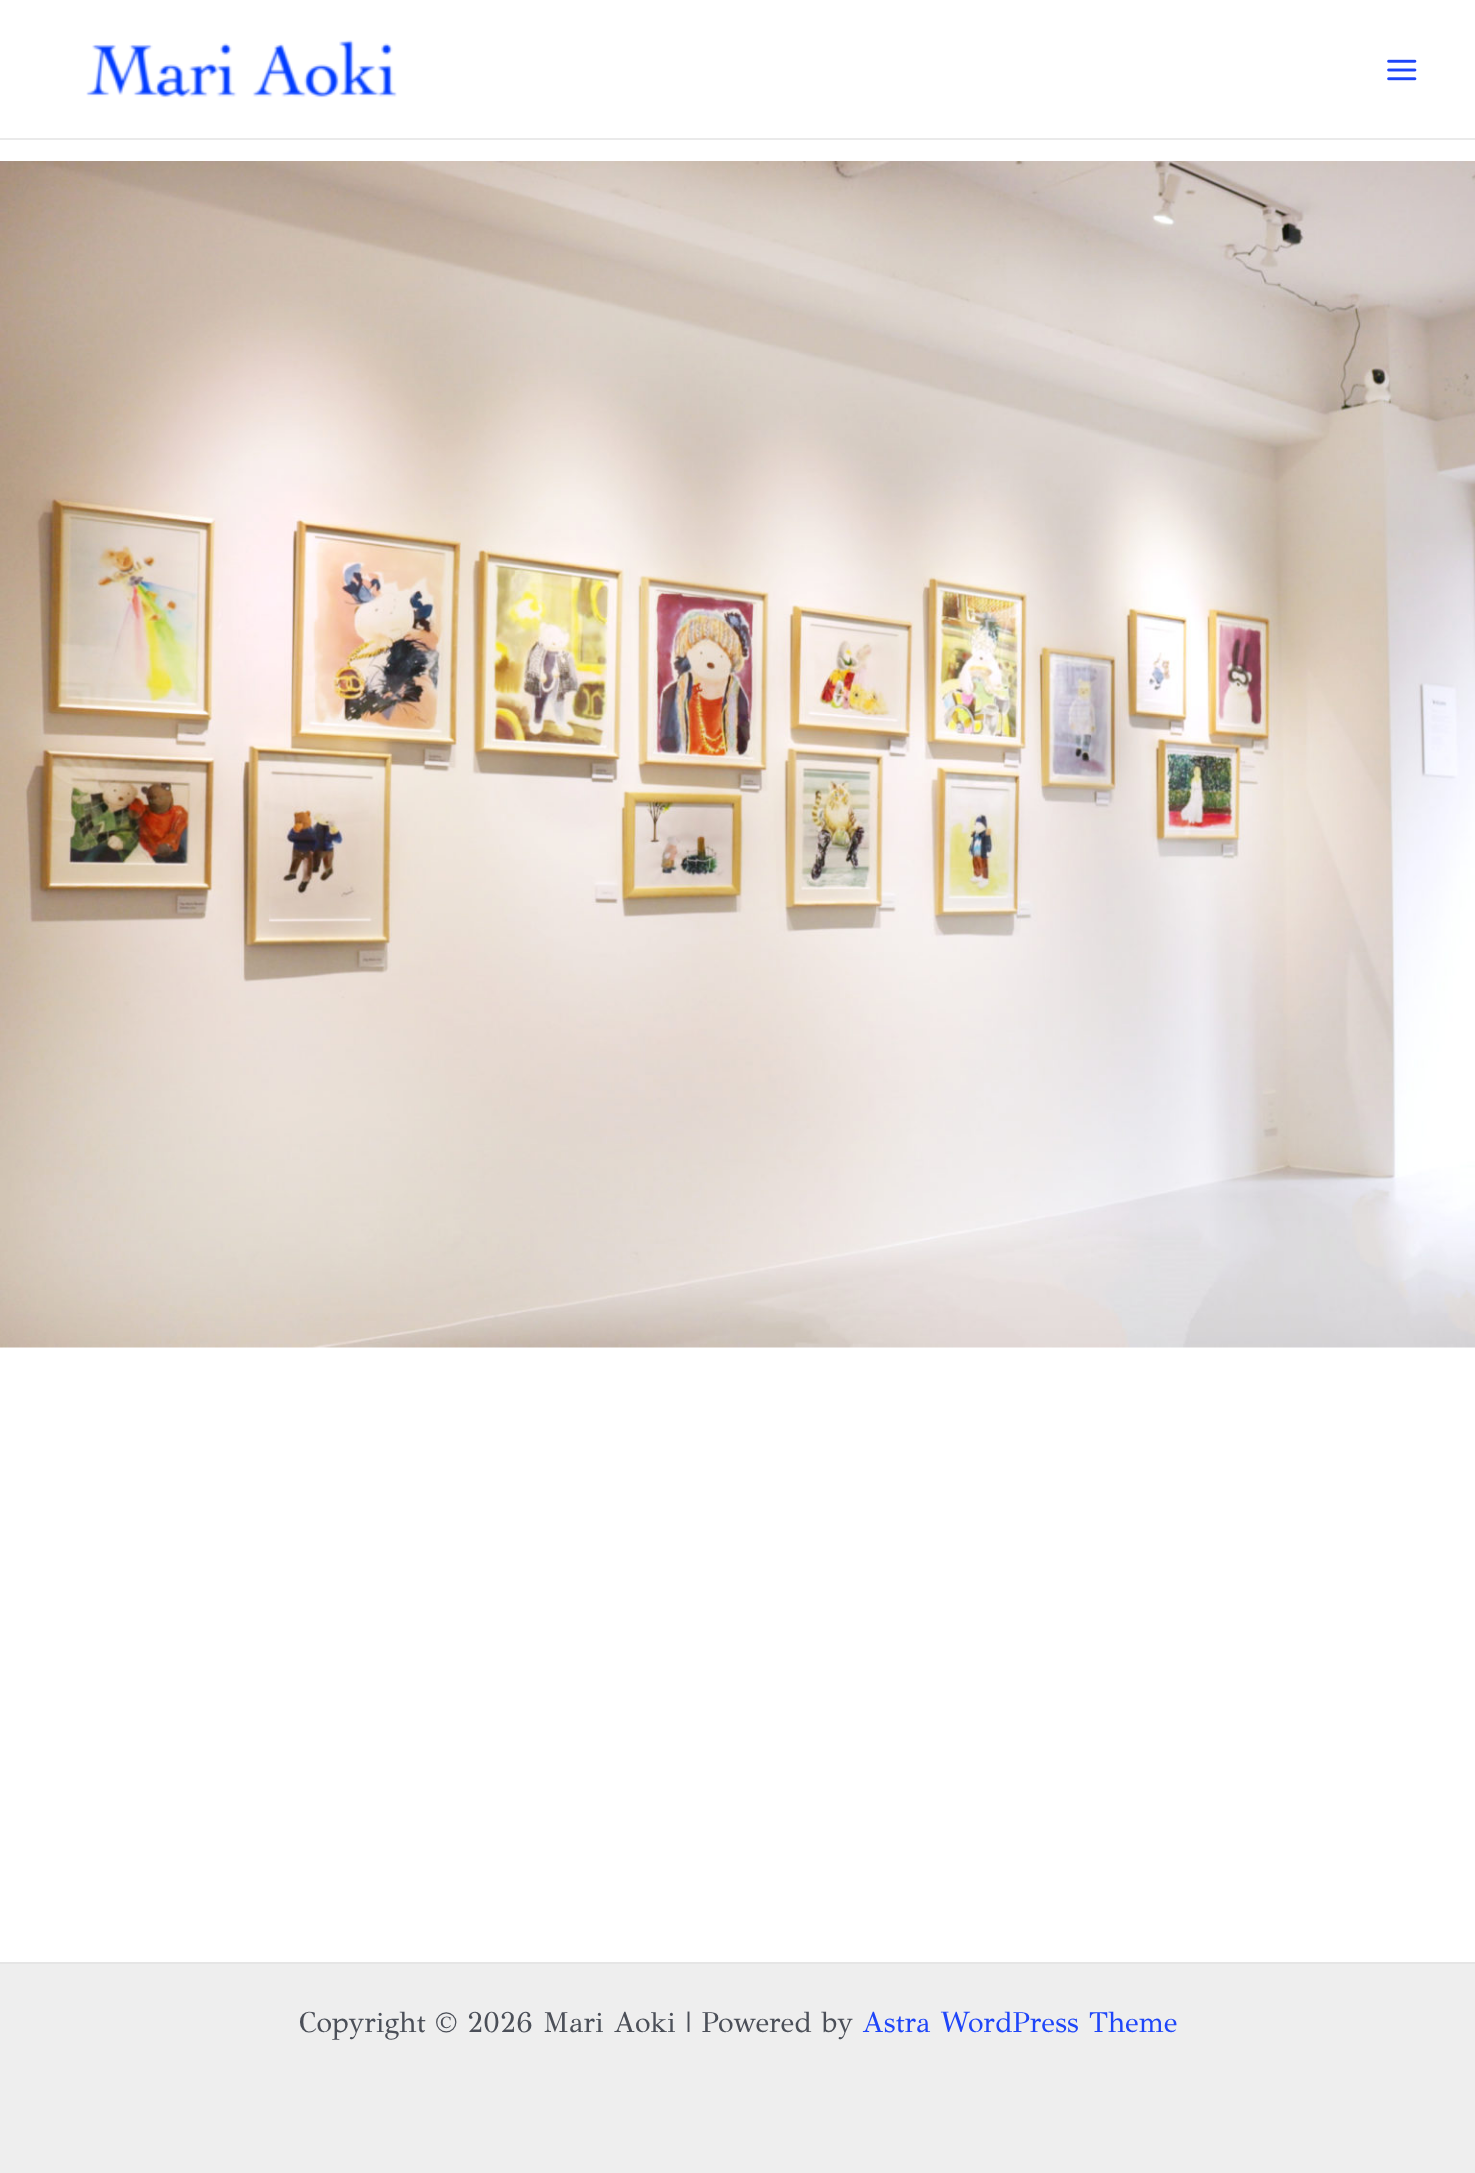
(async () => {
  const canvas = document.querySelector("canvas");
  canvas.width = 1475;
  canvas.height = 2173;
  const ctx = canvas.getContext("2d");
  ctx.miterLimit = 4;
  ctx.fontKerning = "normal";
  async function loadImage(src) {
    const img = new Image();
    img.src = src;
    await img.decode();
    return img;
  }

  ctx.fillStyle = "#ffffff";
  ctx.fillRect(0, 0, 1475, 2173);
  ctx.fillStyle = "#eaeaea";
  ctx.fillRect(0, 138, 1475, 2);
  ctx.drawImage(await loadImage("img/1.png"), 86, 40, 311, 58);
  ctx.drawImage(await loadImage("img/2.png"), 1387, 59, 30, 22);
  ctx.drawImage(await loadImage("img/3.png"), 0, 161, 1475, 1187);
  ctx.fillStyle = "#eeeeee";
  ctx.fillRect(0, 1964, 1475, 209);
  ctx.fillStyle = "#e5e5e5";
  ctx.fillRect(0, 1962, 1475, 2);
  ctx.font = "28.75px GFS Didot";
  ctx.fillStyle = "#4b4f58";
  ctx.fillText("Copyright © 2026 Mari Aoki | Powered by", 299, 2032);
  ctx.fillStyle = "#1e45f9";
  ctx.fillText("Astra WordPress Theme", 862, 2032);
})();
